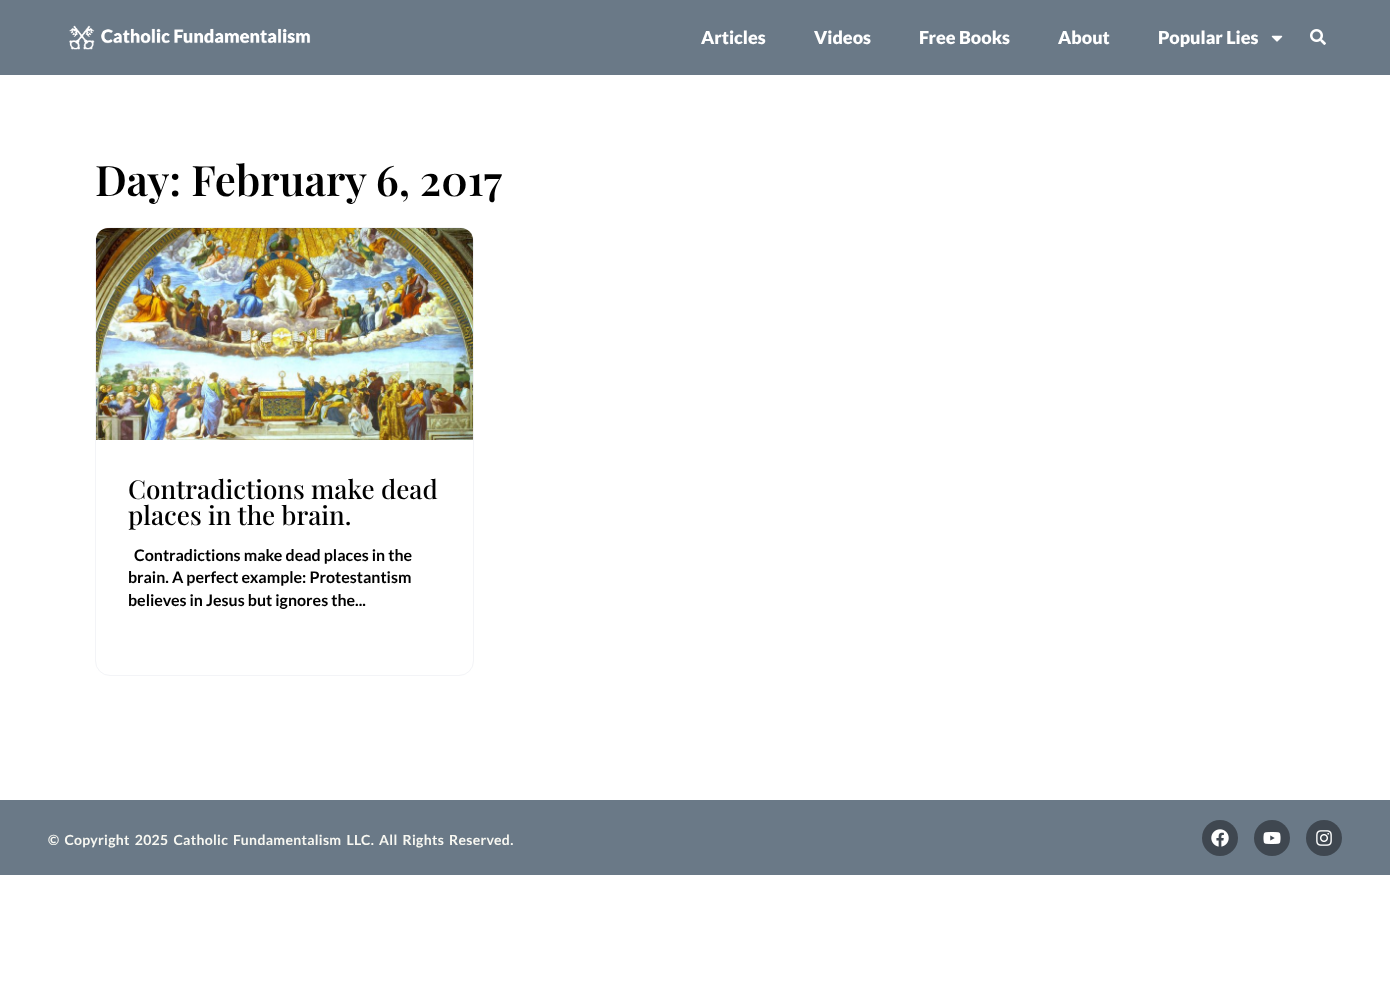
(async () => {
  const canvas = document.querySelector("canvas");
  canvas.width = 1390;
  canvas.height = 1004;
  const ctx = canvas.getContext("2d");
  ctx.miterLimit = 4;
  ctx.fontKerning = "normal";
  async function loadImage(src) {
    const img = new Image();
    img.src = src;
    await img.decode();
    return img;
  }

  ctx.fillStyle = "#ffffff";
  ctx.fillRect(0, 0, 1390, 1004);
  ctx.fillStyle = "#6a7987";
  ctx.fillRect(0, 0, 1390, 75);
  ctx.drawImage(await loadImage("img/1.png"), 69, 25, 242, 25);
  ctx.drawImage(await loadImage("img/2.png"), 1271, 35, 12, 7);
  ctx.drawImage(await loadImage("img/3.png"), 1310, 29, 16, 16);
  ctx.beginPath();
  ctx.roundRect(95.5, 227.5, 378, 448, 14.5);
  ctx.strokeStyle = "#f3f4f7";
  ctx.stroke();
  ctx.drawImage(await loadImage("img/4.png"), 96, 228, 377, 212);
  ctx.fillRect(0, 800, 1390, 75);
  ctx.fillStyle = "#3f4750";
  ctx.beginPath();
  ctx.arc(1220, 838, 18, 0, Math.PI * 2);
  ctx.fill();
  ctx.drawImage(await loadImage("img/5.png"), 1211, 829, 18, 18);
  ctx.beginPath();
  ctx.arc(1272, 838, 18, 0, Math.PI * 2);
  ctx.fill();
  ctx.drawImage(await loadImage("img/6.png"), 1263, 832, 18, 12);
  ctx.beginPath();
  ctx.arc(1324, 838, 18, 0, Math.PI * 2);
  ctx.fill();
  ctx.drawImage(await loadImage("img/7.png"), 1316, 830, 16, 16);
  ctx.font = "900 18px Lato";
  ctx.fillStyle = "#ffffff";
  for (const [text, x, y] of [
    ["Articles", 701, 44],
    ["Videos", 814, 44],
    ["Free Books", 919, 44],
    ["About", 1058, 44],
    ["Popular Lies", 1158, 44],
  ]) {
    ctx.fillText(text, x, y);
  }
  ctx.font = "600 42px Playfair Display";
  ctx.fillStyle = "#000000";
  ctx.fillText("Day: February 6, 2017", 95, 196);
  ctx.font = "500 26px Playfair Display";
  ctx.fillText("Contradictions make dead", 128, 499);
  ctx.fillText("places in the brain.", 128, 525);
  ctx.font = "bold 16px Lato";
  for (const [text, x, y] of [
    ["Contradictions make dead places in the", 134, 561],
    ["brain. A perfect example: Protestantism", 128, 583],
    ["believes in Jesus but ignores the...", 128, 606],
  ]) {
    ctx.fillText(text, x, y);
  }
  ctx.letterSpacing = "0.3px";
  ctx.wordSpacing = "2px";
  ctx.font = "bold 14px Lato";
  ctx.fillStyle = "#f8f8f2";
  ctx.fillText("© Copyright 2025 Catholic Fundamentalism LLC. All Rights Reserved.", 48, 845);
})();
